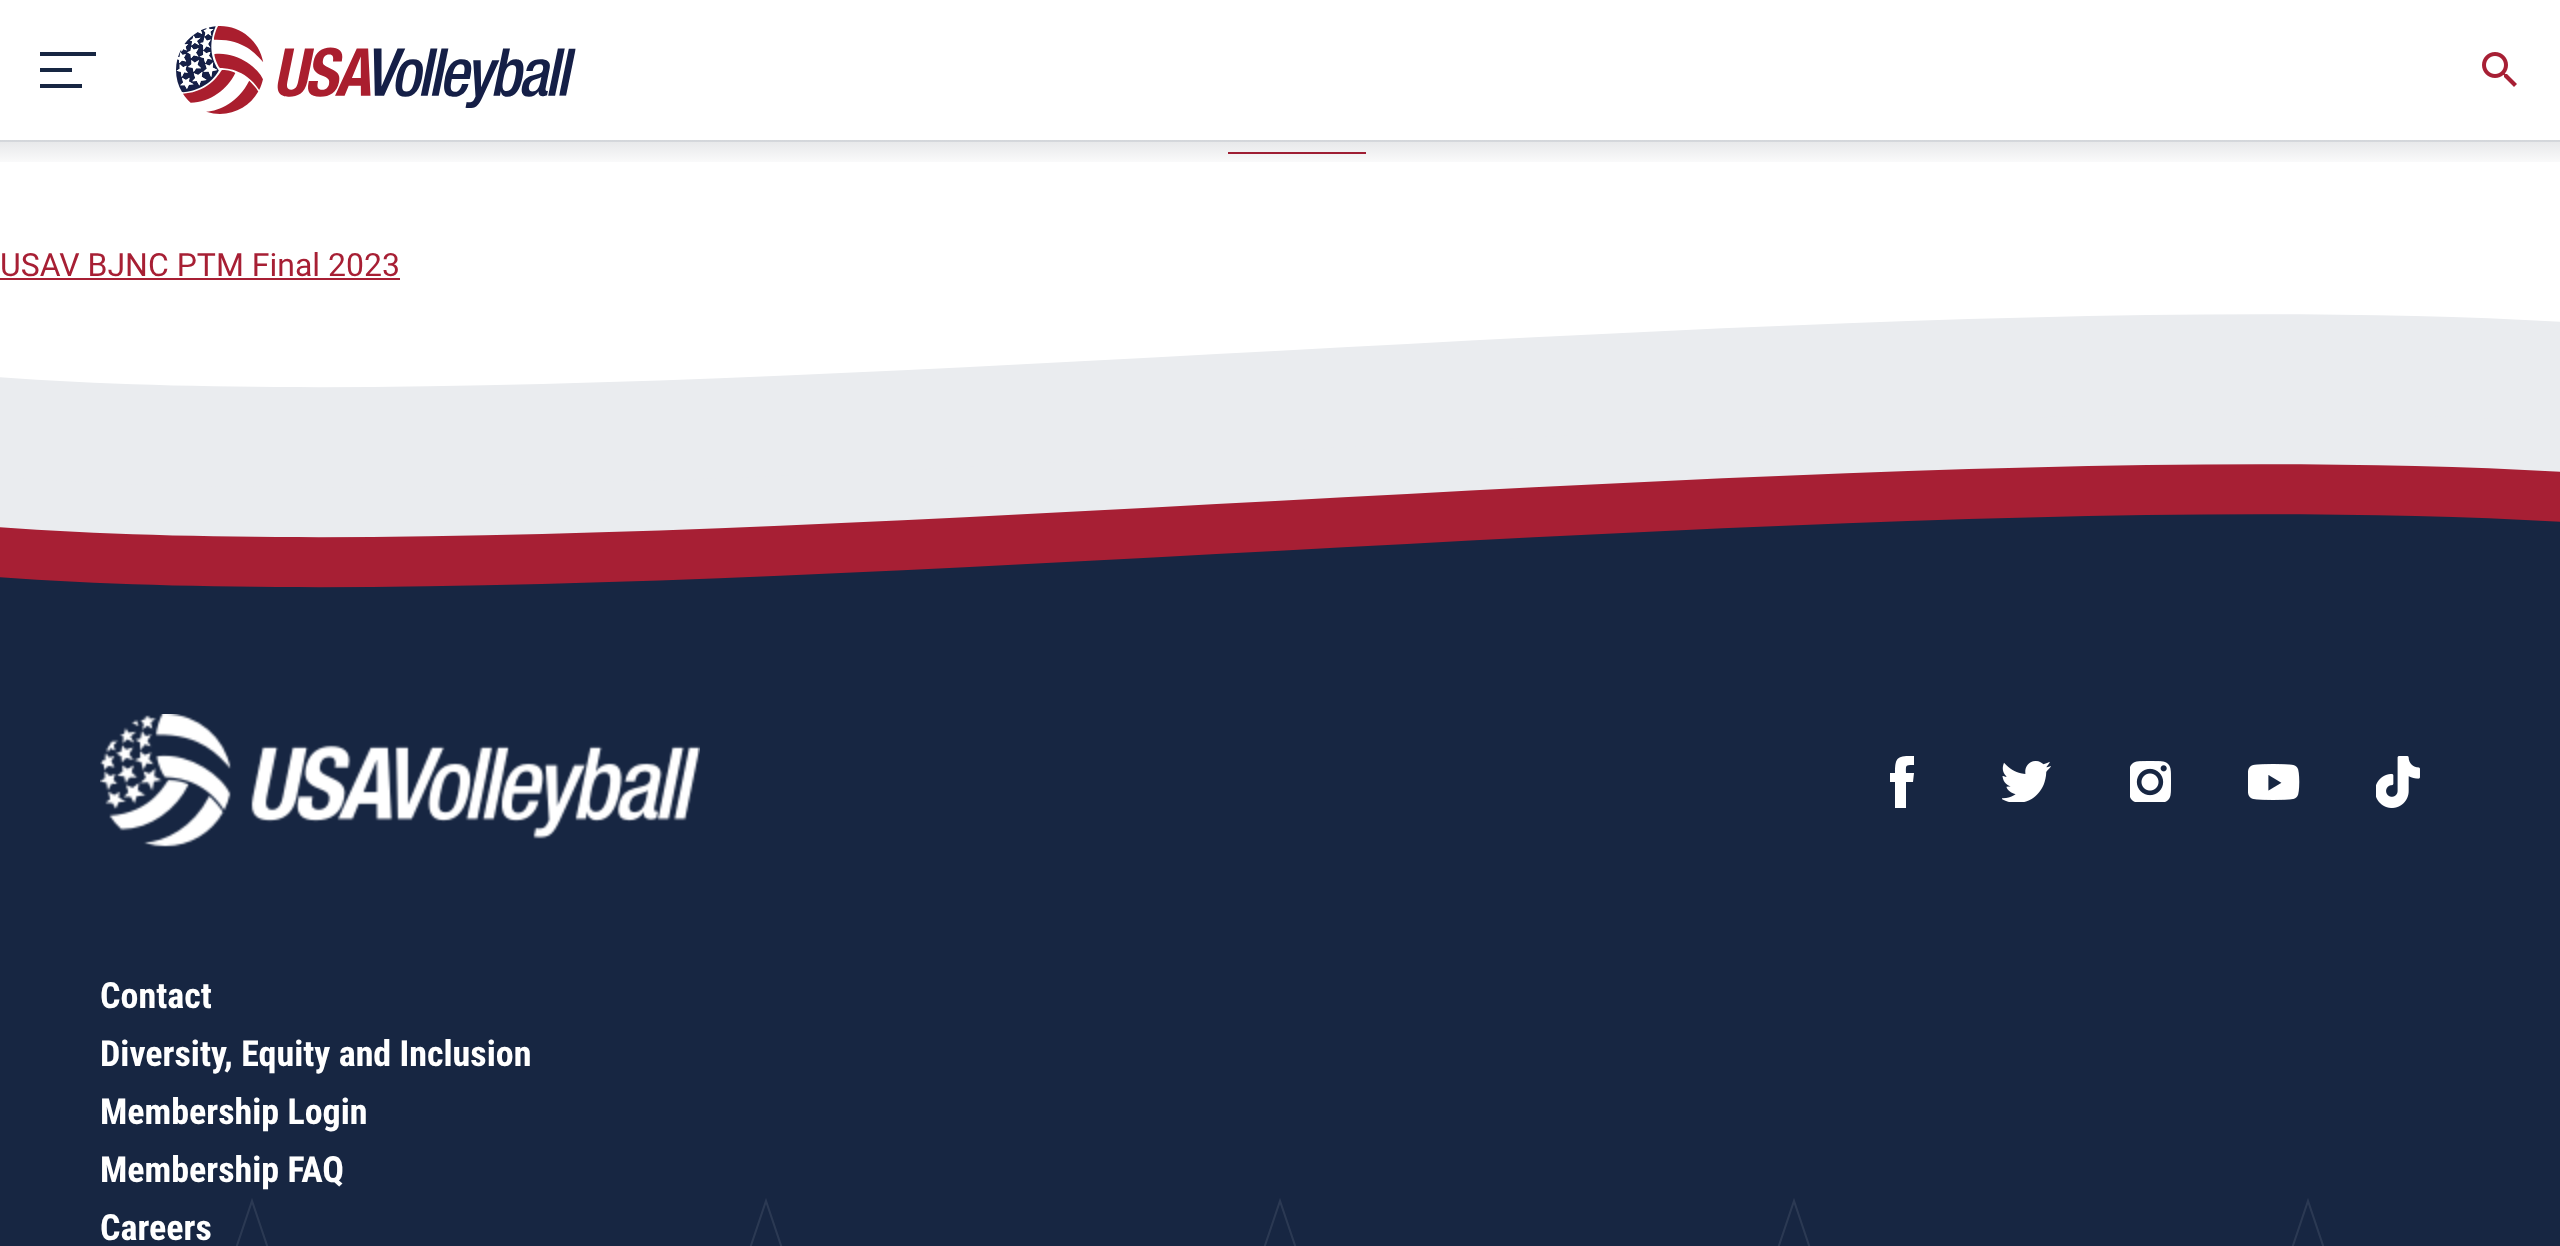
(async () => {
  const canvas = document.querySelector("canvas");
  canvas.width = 2560;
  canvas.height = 1246;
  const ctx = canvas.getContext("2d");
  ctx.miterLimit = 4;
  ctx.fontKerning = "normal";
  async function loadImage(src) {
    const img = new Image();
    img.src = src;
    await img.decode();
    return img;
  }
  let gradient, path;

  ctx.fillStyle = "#ffffff";
  ctx.fillRect(0, 0, 2560, 1246);
  for (const [x, y, w, h, color] of [
    [0, 140, 2560, 2, "#eaecef"],
    [40, 52, 56, 4, "#172642"],
    [40, 68, 32, 4, "#172642"],
    [40, 84, 42, 4, "#172642"],
  ]) {
    ctx.fillStyle = color;
    ctx.fillRect(x, y, w, h);
  }
  ctx.drawImage(await loadImage("img/1.png"), 176, 26, 400, 88);
  ctx.drawImage(await loadImage("img/2.png"), 2482, 52, 35, 35);
  ctx.fillStyle = "#a71f34";
  ctx.fillRect(1228, 152, 138, 2);
  gradient = ctx.createLinearGradient(1280, 140, 1280, 168);
  gradient.addColorStop(0, "rgba(10, 20, 37, 0.1)");
  gradient.addColorStop(1, "rgba(10, 20, 37, 0)");
  ctx.fillStyle = gradient;
  ctx.fillRect(0, 140, 2560, 22);
  ctx.fillStyle = "#a71f34";
  ctx.fillRect(0, 278, 400, 2);
  ctx.fillStyle = "#eaecef";
  path = new Path2D("M-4 377C662 426 1830 280 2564 322V577H-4Z");
  ctx.fill(path, "evenodd");
  path = new Path2D("M-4 477C662 526 1830 380 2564 422V677H-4Z");
  ctx.fill(path, "evenodd");
  ctx.fillStyle = "#a71f34";
  path = new Path2D("M-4 527C662 576 1830 430 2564 472V727H-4Z");
  ctx.fill(path, "evenodd");
  ctx.fillStyle = "#172642";
  path = new Path2D("M-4 577C662 626 1830 480 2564 522V777H-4Z");
  ctx.fill(path, "evenodd");
  ctx.fillRect(0, 777, 2560, 469);
  ctx.drawImage(await loadImage("img/3.png"), 100, 714, 600, 133);
  ctx.fillStyle = "#ffffff";
  path = new Path2D("M1906 808V782H1913L1914 773H1906C1906 765 1905 765 1914 765V756C1898 756 1895 756 1895 773H1890V782H1895V808Z");
  ctx.fill(path);
  ctx.drawImage(await loadImage("img/4.png"), 2002, 761, 49, 41);
  ctx.drawImage(await loadImage("img/5.png"), 2130, 761, 41, 41);
  ctx.drawImage(await loadImage("img/6.png"), 2248, 764, 52, 36);
  ctx.drawImage(await loadImage("img/7.png"), 2376, 756, 44, 52);
  ctx.drawImage(await loadImage("img/8.png"), 236, 1198, 2088, 48);
  ctx.font = "32px Roboto";
  ctx.fillStyle = "#a71f34";
  ctx.fillText("USAV BJNC PTM Final 2023", 0, 276);
  ctx.font = "bold 36px Roboto Condensed";
  ctx.fillStyle = "#ffffff";
  for (const [text, x, y] of [
    ["Contact", 100, 1008],
    ["Diversity, Equity and Inclusion", 100, 1066],
    ["Membership Login", 100, 1124],
    ["Membership FAQ", 100, 1182],
    ["Careers", 100, 1240],
  ]) {
    ctx.fillText(text, x, y);
  }
})();
